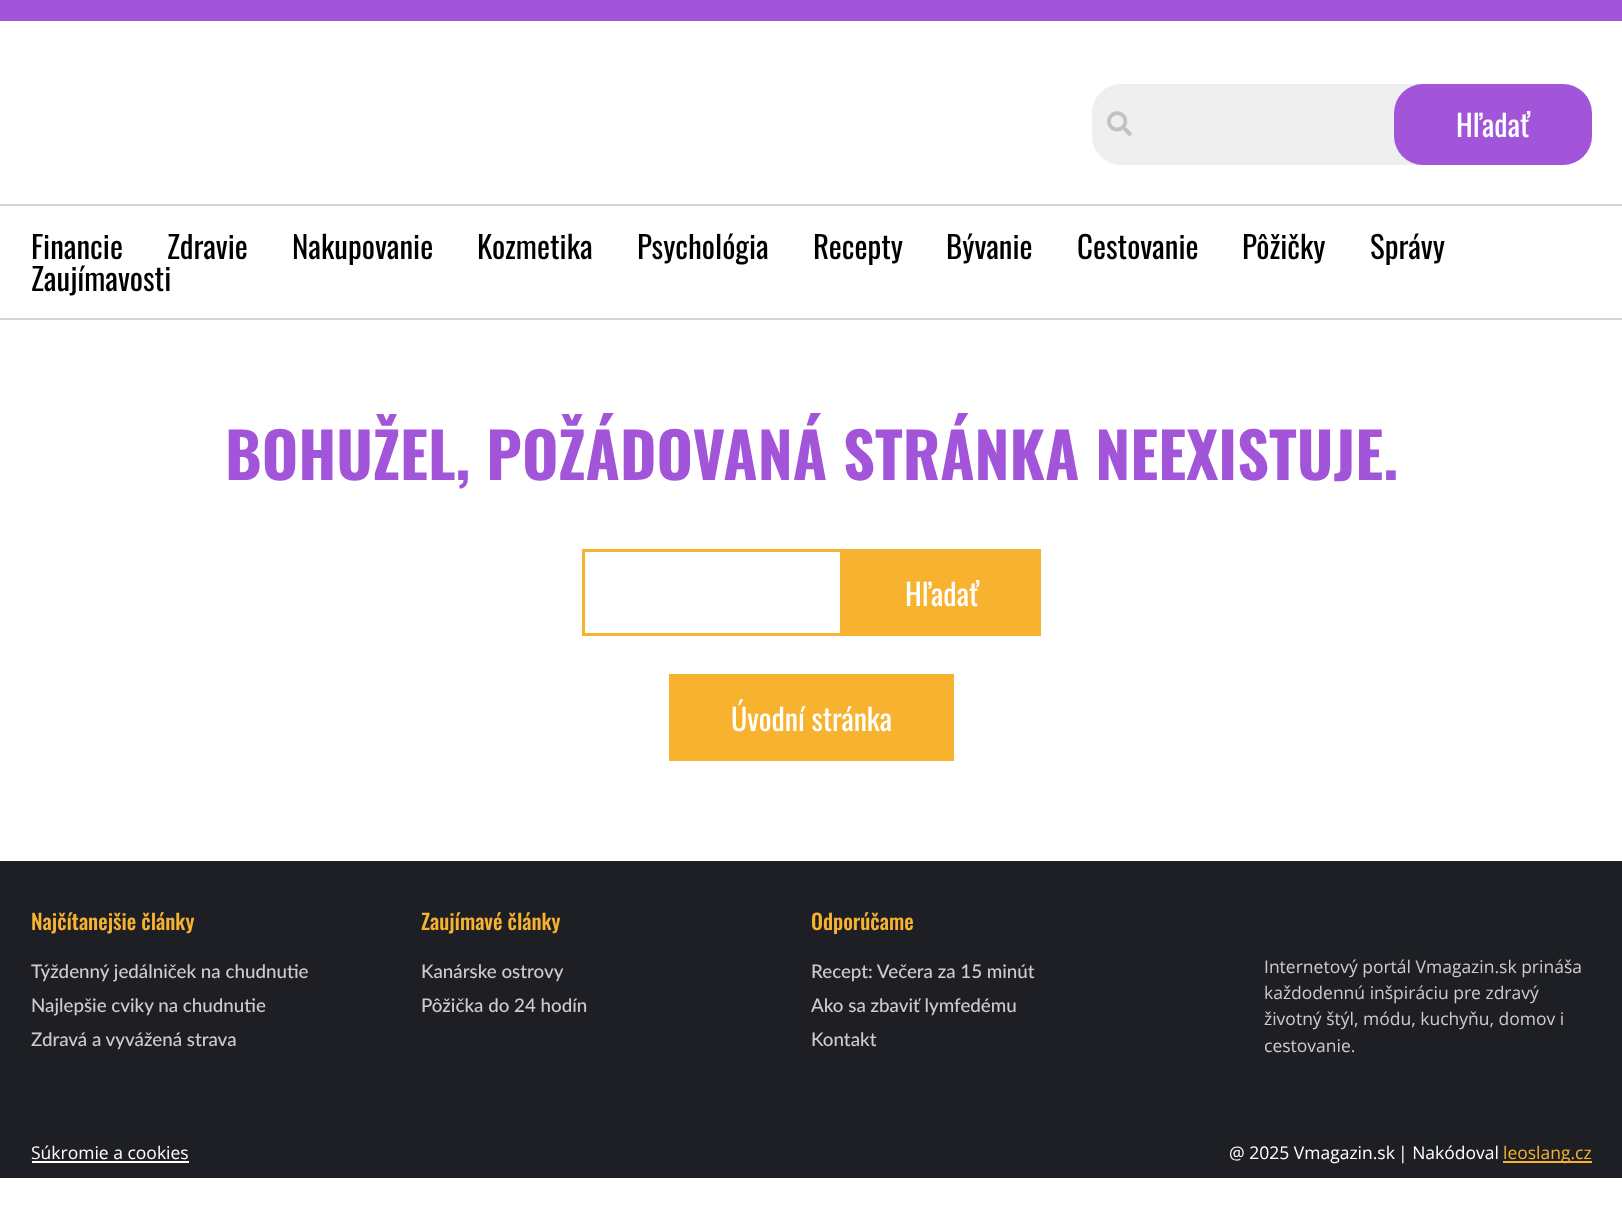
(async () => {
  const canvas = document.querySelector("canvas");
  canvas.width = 1622;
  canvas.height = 1213;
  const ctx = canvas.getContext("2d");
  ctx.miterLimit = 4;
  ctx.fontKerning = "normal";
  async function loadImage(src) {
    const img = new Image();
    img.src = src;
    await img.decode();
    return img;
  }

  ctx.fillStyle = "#ffffff";
  ctx.fillRect(0, 0, 1622, 1213);
  ctx.fillStyle = "#a255d8";
  ctx.fillRect(0, 0, 1622, 21);
  ctx.fillStyle = "#efefef";
  ctx.beginPath();
  ctx.roundRect(1092, 84, 500, 81, 29);
  ctx.fill();
  ctx.drawImage(await loadImage("img/1.png"), 1107, 111, 25, 25);
  ctx.fillStyle = "#a255d8";
  ctx.beginPath();
  ctx.roundRect(1394, 84, 198, 81, 29);
  ctx.fill();
  ctx.fillStyle = "#d4d6da";
  ctx.fillRect(0, 204, 1622, 2);
  ctx.fillRect(0, 318, 1622, 2);
  ctx.strokeStyle = "#f7b32f";
  ctx.lineWidth = 3;
  ctx.strokeRect(583.5, 550.5, 258, 84);
  for (const [x, y, w, h, color] of [
    [843, 549, 198, 87, "#f7b32f"],
    [669, 674, 285, 87, "#f7b32f"],
    [0, 861, 1622, 317, "#1d1f24"],
    [32, 1161, 157, 2, "#ffffff"],
    [1503, 1161, 89, 2, "#f7b32f"],
  ]) {
    ctx.fillStyle = color;
    ctx.fillRect(x, y, w, h);
  }
  ctx.font = "30px Oswald";
  ctx.fillStyle = "#ffffff";
  ctx.fillText("Hľadať", 1456, 137);
  ctx.font = "31px Oswald";
  ctx.fillStyle = "#000000";
  for (const [text, x, y] of [
    ["Financie", 31, 259],
    ["Zdravie", 167, 259],
    ["Nakupovanie", 292, 259],
    ["Kozmetika", 477, 259],
    ["Psychológia", 637, 259],
    ["Recepty", 813, 259],
    ["Bývanie", 946, 259],
    ["Cestovanie", 1077, 259],
    ["Pôžičky", 1242, 259],
    ["Správy", 1370, 259],
    ["Zaujímavosti", 31, 291],
  ]) {
    ctx.fillText(text, x, y);
  }
  ctx.font = "bold 62.4px Oswald";
  ctx.fillStyle = "#a255d8";
  ctx.fillText("BOHUŽEL, POŽÁDOVANÁ STRÁNKA NEEXISTUJE.", 225, 480);
  ctx.font = "30px Oswald";
  ctx.fillStyle = "#ffffff";
  ctx.fillText("Hľadať", 905, 606);
  ctx.fillText("Úvodní stránka", 731, 731);
  ctx.font = "500 21.25px Oswald";
  ctx.fillStyle = "#f7b32f";
  ctx.fillText("Najčítanejšie články", 31, 930);
  ctx.font = "500 18.75px Lato";
  ctx.fillStyle = "#cdcccd";
  for (const [text, x, y] of [
    ["Týždenný jedálniček na chudnutie", 31, 978],
    ["Najlepšie cviky na chudnutie", 31, 1012],
    ["Zdravá a vyvážená strava", 31, 1046],
  ]) {
    ctx.fillText(text, x, y);
  }
  ctx.font = "500 21.25px Oswald";
  ctx.fillStyle = "#f7b32f";
  ctx.fillText("Zaujímavé články", 421, 930);
  ctx.font = "500 18.75px Lato";
  ctx.fillStyle = "#cdcccd";
  ctx.fillText("Kanárske ostrovy", 421, 978);
  ctx.fillText("Pôžička do 24 hodín", 421, 1012);
  ctx.font = "500 21.25px Oswald";
  ctx.fillStyle = "#f7b32f";
  ctx.fillText("Odporúčame", 811, 930);
  ctx.font = "500 18.75px Lato";
  ctx.fillStyle = "#cdcccd";
  for (const [text, x, y] of [
    ["Recept: Večera za 15 minút", 811, 978],
    ["Ako sa zbaviť lymfedému", 811, 1012],
    ["Kontakt", 811, 1046],
  ]) {
    ctx.fillText(text, x, y);
  }
  ctx.font = "17.5px Open Sans";
  for (const [text, x, y] of [
    ["Internetový portál Vmagazin.sk prináša", 1264, 973],
    ["každodennú inšpiráciu pre zdravý", 1264, 999],
    ["životný štýl, módu, kuchyňu, domov i", 1264, 1025],
    ["cestovanie.", 1264, 1052],
  ]) {
    ctx.fillText(text, x, y);
  }
  ctx.fillStyle = "#ffffff";
  for (const [text, x, y] of [
    ["Súkromie a cookies", 31, 1159],
    ["@ 2025 Vmagazin.sk", 1229, 1159],
    ["| Nakódoval", 1398, 1159],
  ]) {
    ctx.fillText(text, x, y);
  }
  ctx.fillStyle = "#f7b32f";
  ctx.fillText("leoslang.cz", 1503, 1159);
})();
